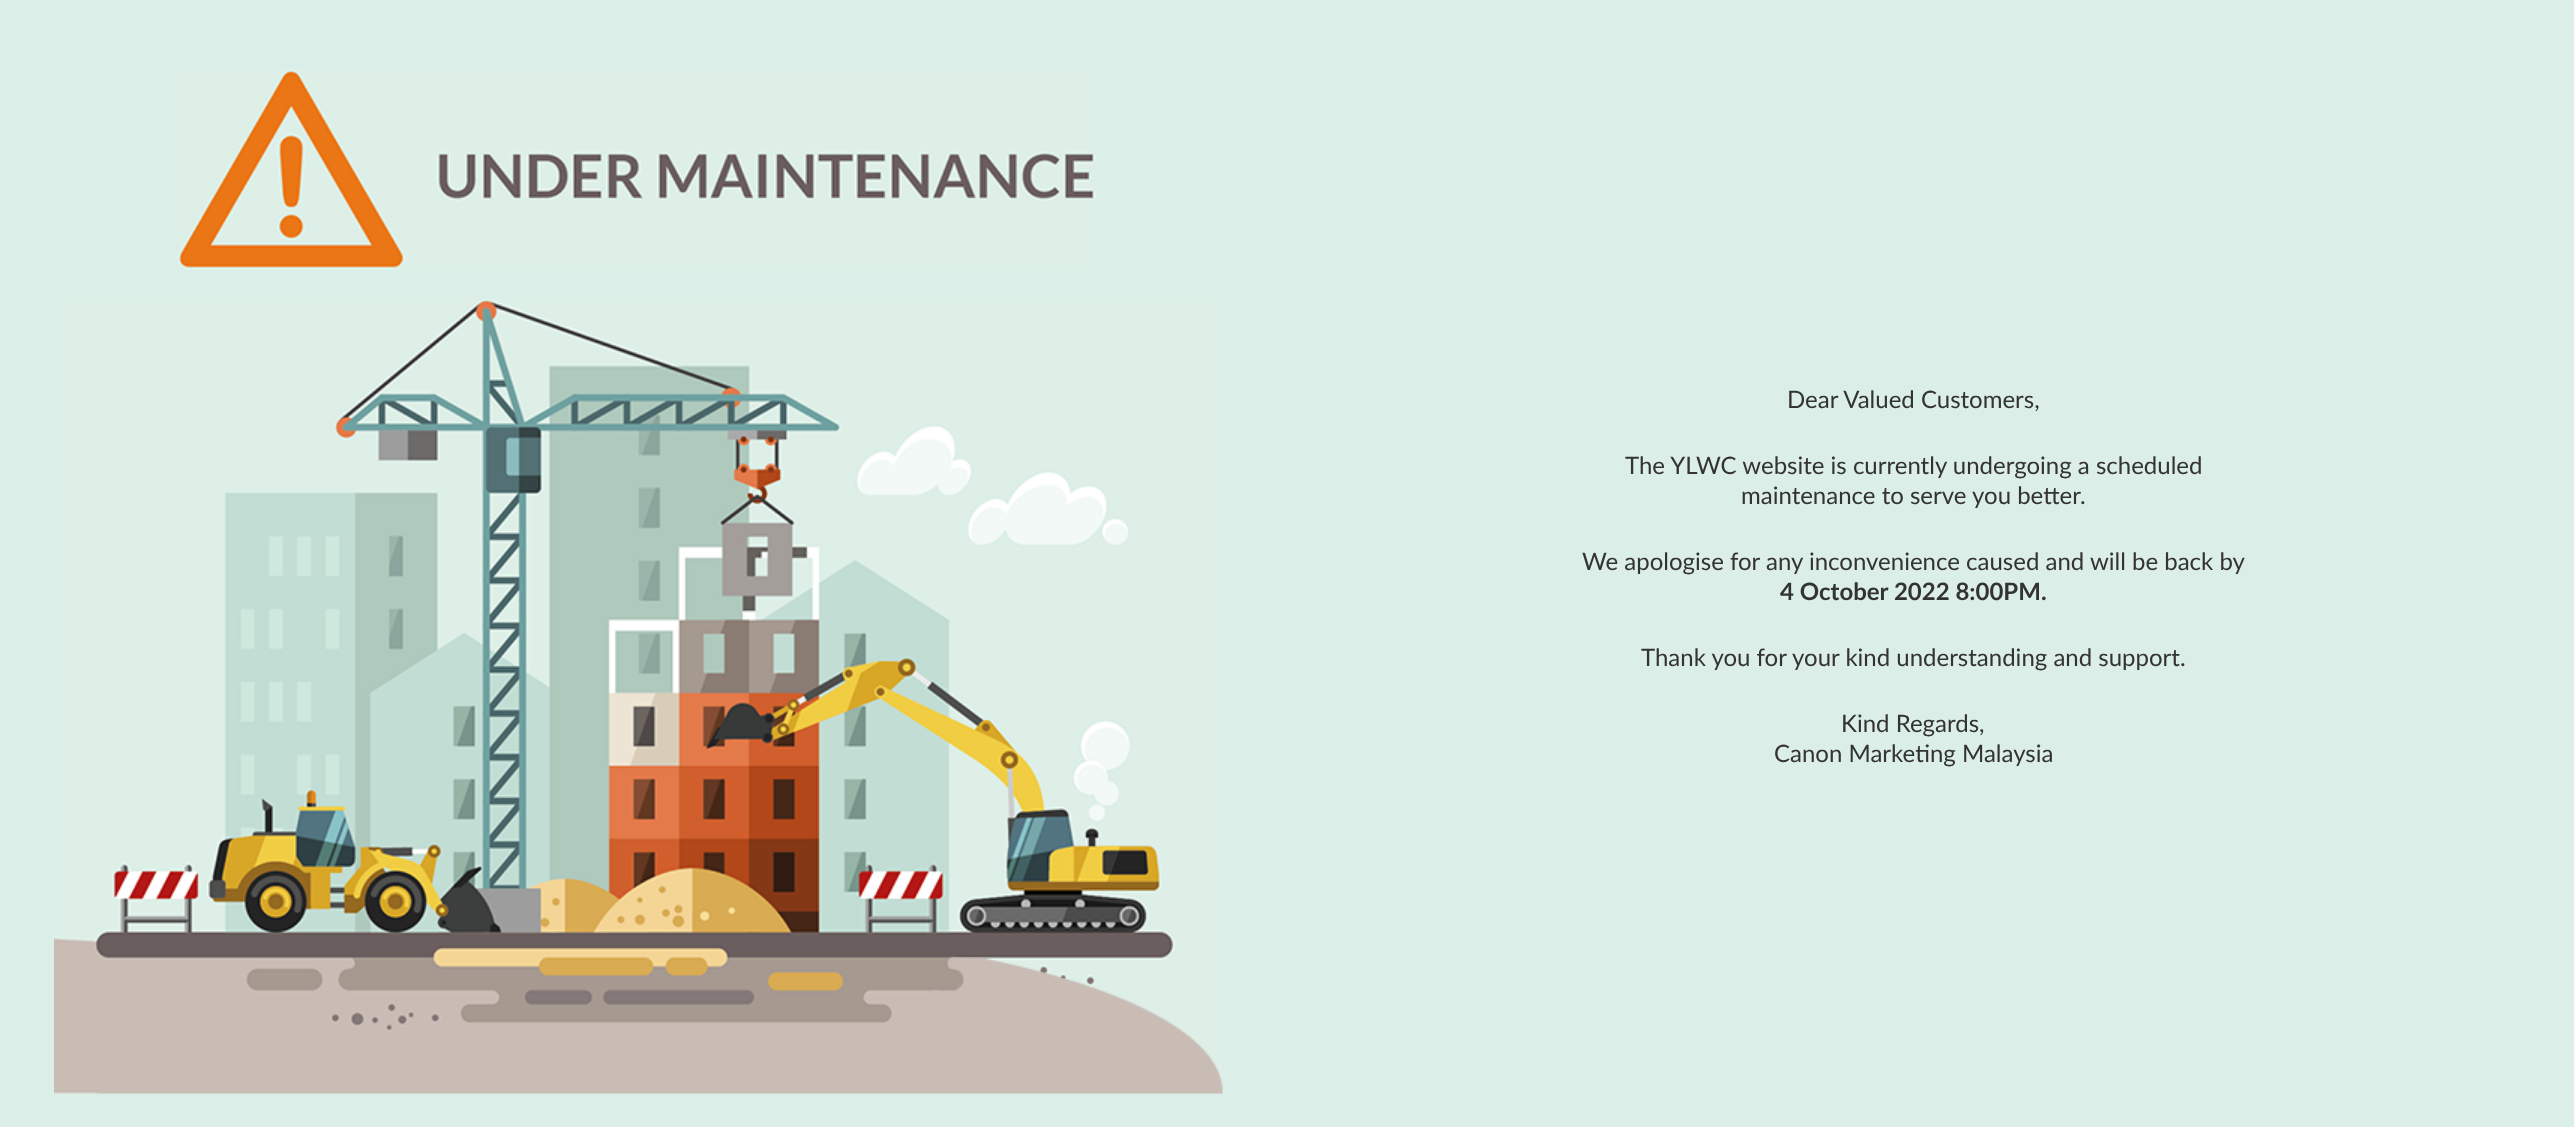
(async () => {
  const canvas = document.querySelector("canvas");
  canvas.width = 2574;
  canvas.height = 1127;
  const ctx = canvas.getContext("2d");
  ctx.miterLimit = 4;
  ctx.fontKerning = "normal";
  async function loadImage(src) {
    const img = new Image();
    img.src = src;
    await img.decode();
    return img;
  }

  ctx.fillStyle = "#dbeee7";
  ctx.fillRect(0, 0, 2574, 1127);
  ctx.drawImage(await loadImage("img/1.png"), 177, 69, 919, 201);
  ctx.drawImage(await loadImage("img/2.png"), 54, 298, 1169, 796);
  ctx.font = "24px Lato";
  ctx.fillStyle = "#333333";
  for (const [text, x, y] of [
    ["Dear Valued Customers,", 1787, 408],
    ["The YLWC website is currently undergoing a scheduled", 1625, 474],
    ["maintenance to serve you better.", 1741, 504],
    ["We apologise for any inconvenience caused and will be back by", 1582, 570],
  ]) {
    ctx.fillText(text, x, y);
  }
  ctx.font = "bold 24px Lato";
  ctx.fillText("4 October 2022 8:00PM.", 1780, 600);
  ctx.font = "24px Lato";
  for (const [text, x, y] of [
    ["Thank you for your kind understanding and support.", 1641, 666],
    ["Kind Regards,", 1841, 732],
    ["Canon Marketing Malaysia", 1774, 762],
  ]) {
    ctx.fillText(text, x, y);
  }
})();
